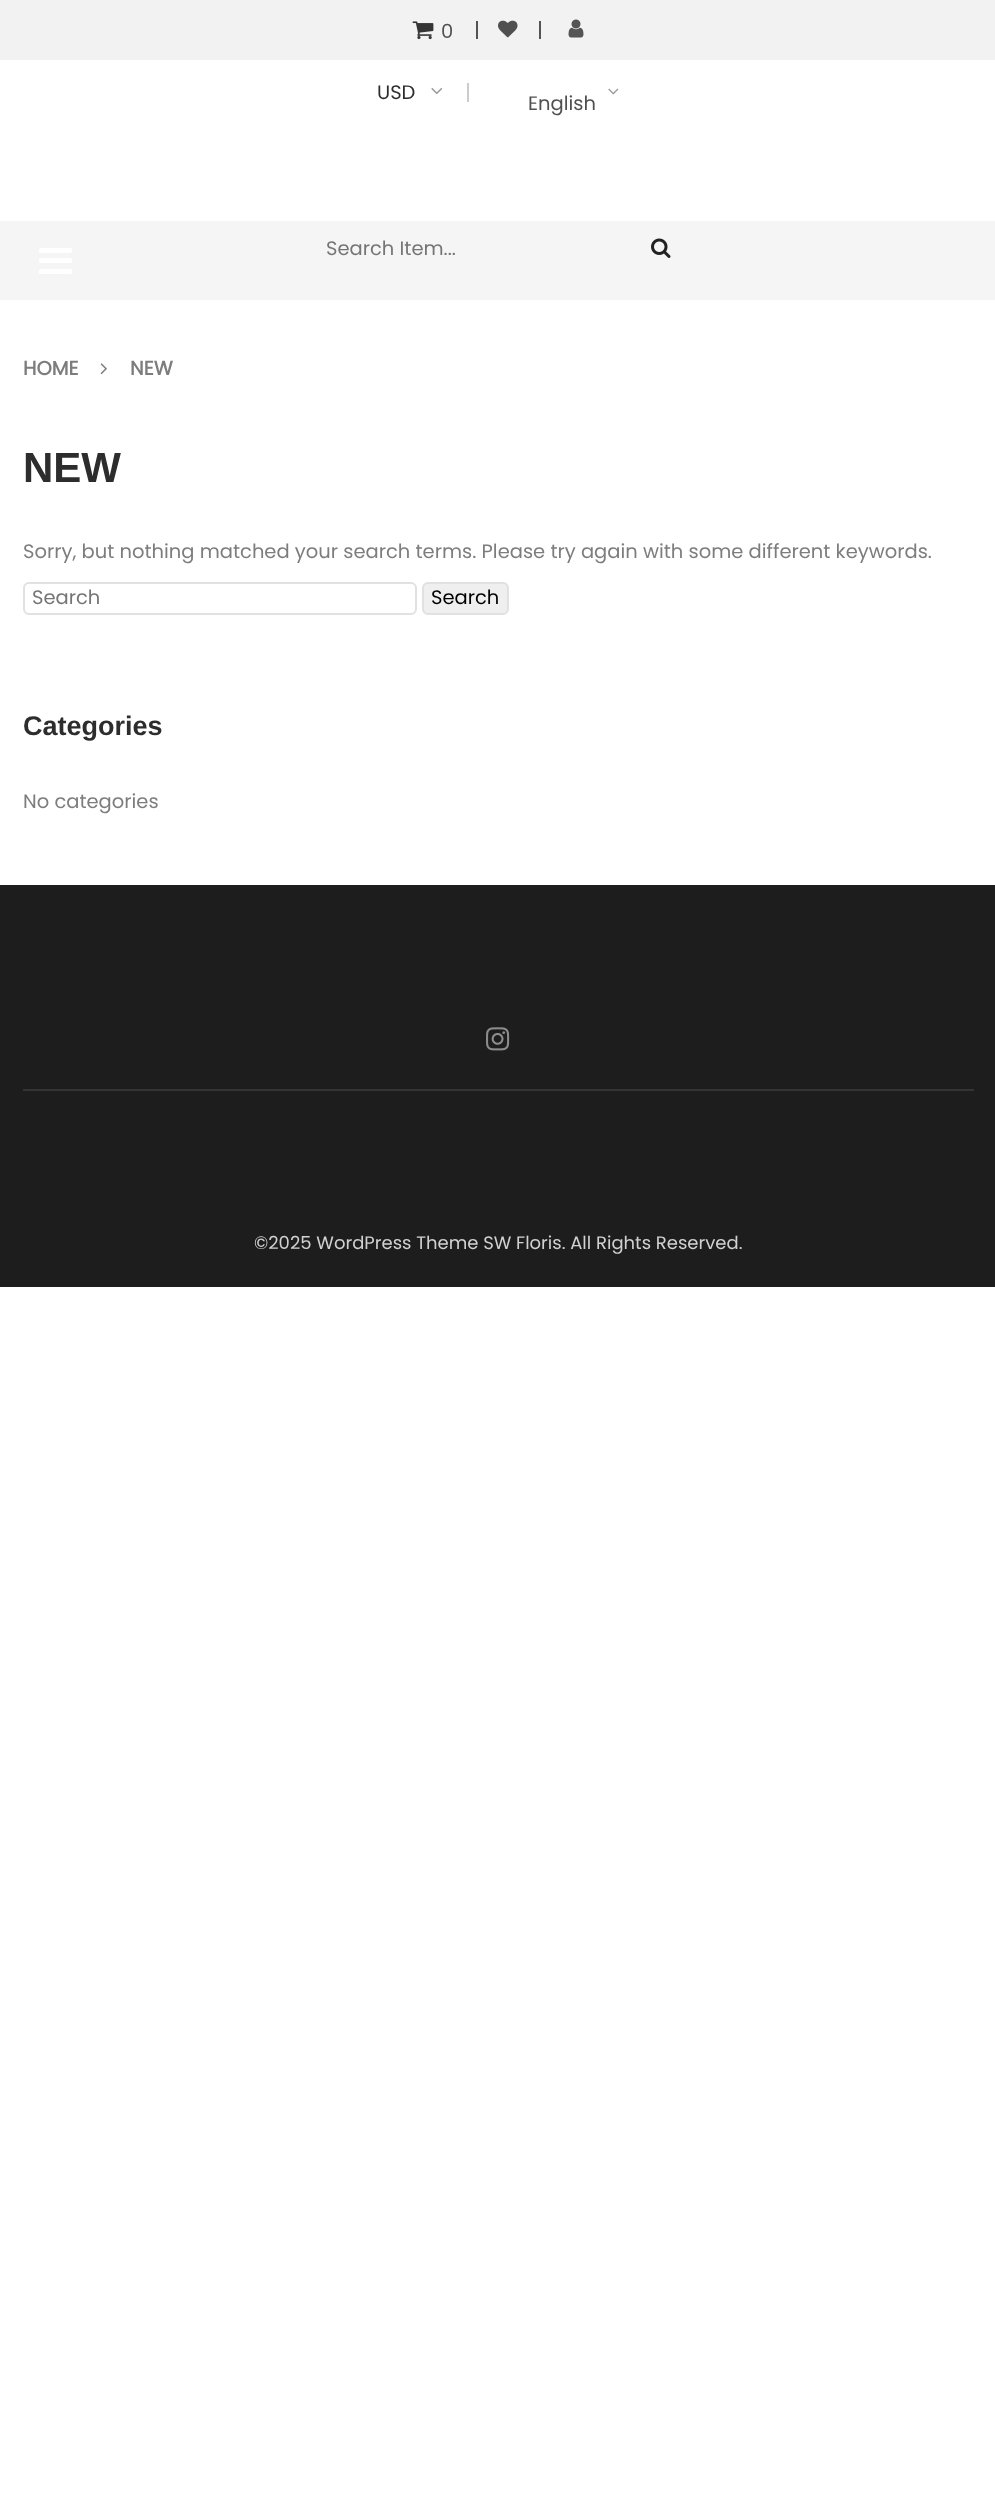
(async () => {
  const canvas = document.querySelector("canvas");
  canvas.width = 995;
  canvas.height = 2495;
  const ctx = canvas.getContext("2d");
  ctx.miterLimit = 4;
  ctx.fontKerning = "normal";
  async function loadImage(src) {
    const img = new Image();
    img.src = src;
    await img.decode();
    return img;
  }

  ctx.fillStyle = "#ffffff";
  ctx.fillRect(0, 0, 995, 2495);
  ctx.fillStyle = "#f2f2f2";
  ctx.fillRect(0, 0, 995, 60);
  ctx.drawImage(await loadImage("img/1.png"), 412, 21, 22, 19);
  ctx.fillStyle = "#545454";
  ctx.fillRect(476, 21, 2, 18);
  ctx.drawImage(await loadImage("img/2.png"), 498, 20, 20, 18);
  ctx.fillRect(539, 21, 2, 18);
  ctx.drawImage(await loadImage("img/3.png"), 568, 19, 16, 19);
  ctx.drawImage(await loadImage("img/4.png"), 431, 88, 12, 7);
  ctx.fillStyle = "#cccccc";
  ctx.fillRect(467, 83, 2, 19);
  ctx.drawImage(await loadImage("img/5.png"), 608, 88, 11, 7);
  ctx.fillStyle = "#f5f5f5";
  ctx.fillRect(0, 221, 995, 79);
  ctx.drawImage(await loadImage("img/6.png"), 651, 238, 20, 20);
  ctx.fillStyle = "#ffffff";
  ctx.beginPath();
  ctx.roundRect(39, 248, 33, 5, 1.5);
  ctx.fill();
  ctx.beginPath();
  ctx.roundRect(39, 258, 33, 5, 1.5);
  ctx.fill();
  ctx.beginPath();
  ctx.roundRect(39, 269, 33, 5, 1.5);
  ctx.fill();
  ctx.drawImage(await loadImage("img/7.png"), 100, 363, 7, 12);
  ctx.beginPath();
  ctx.roundRect(24, 583, 392, 31, 5);
  ctx.strokeStyle = "#e1e1e1";
  ctx.lineWidth = 2;
  ctx.stroke();
  ctx.fillStyle = "#efefef";
  ctx.beginPath();
  ctx.roundRect(423, 583, 85, 31, 5);
  ctx.fill();
  ctx.stroke();
  ctx.fillStyle = "#1d1d1d";
  ctx.fillRect(0, 885, 995, 402);
  ctx.fillStyle = "#343434";
  ctx.fillRect(23, 1089, 951, 2);
  ctx.drawImage(await loadImage("img/8.png"), 486, 1027, 24, 24);
  ctx.font = "19.5px Poppins";
  ctx.fillStyle = "#505050";
  ctx.fillText("0", 441, 38);
  ctx.fillStyle = "#2d2d2d";
  ctx.fillText("USD", 377, 99);
  ctx.fillStyle = "#505050";
  ctx.fillText("English", 528, 110);
  ctx.fillStyle = "#757575";
  ctx.fillText("Search Item...", 326, 255);
  ctx.font = "bold 19.5px Poppins";
  ctx.fillStyle = "#7d7d7d";
  ctx.fillText("HOME", 23, 375);
  ctx.fillText("NEW", 130, 375);
  ctx.font = "bold 42px Liberation Sans";
  ctx.fillStyle = "#2d2d2d";
  ctx.fillText("NEW", 23, 482);
  ctx.font = "19.5px Poppins";
  ctx.fillStyle = "#7d7d7d";
  ctx.fillText("Sorry, but nothing matched your search terms. Please try again with some different keywords.", 23, 558);
  ctx.fillStyle = "#757575";
  ctx.fillText("Search", 32, 604);
  ctx.fillStyle = "#000000";
  ctx.fillText("Search", 431, 604);
  ctx.font = "bold 27px Liberation Sans";
  ctx.fillStyle = "#2d2d2d";
  ctx.fillText("Categories", 23, 735);
  ctx.font = "19.5px Poppins";
  ctx.fillStyle = "#7d7d7d";
  ctx.fillText("No categories", 23, 808);
  ctx.font = "18px Poppins";
  ctx.fillStyle = "#d1d1d1";
  ctx.fillText("©2025 WordPress Theme SW Floris. All Rights Reserved.", 254, 1249);
})();
